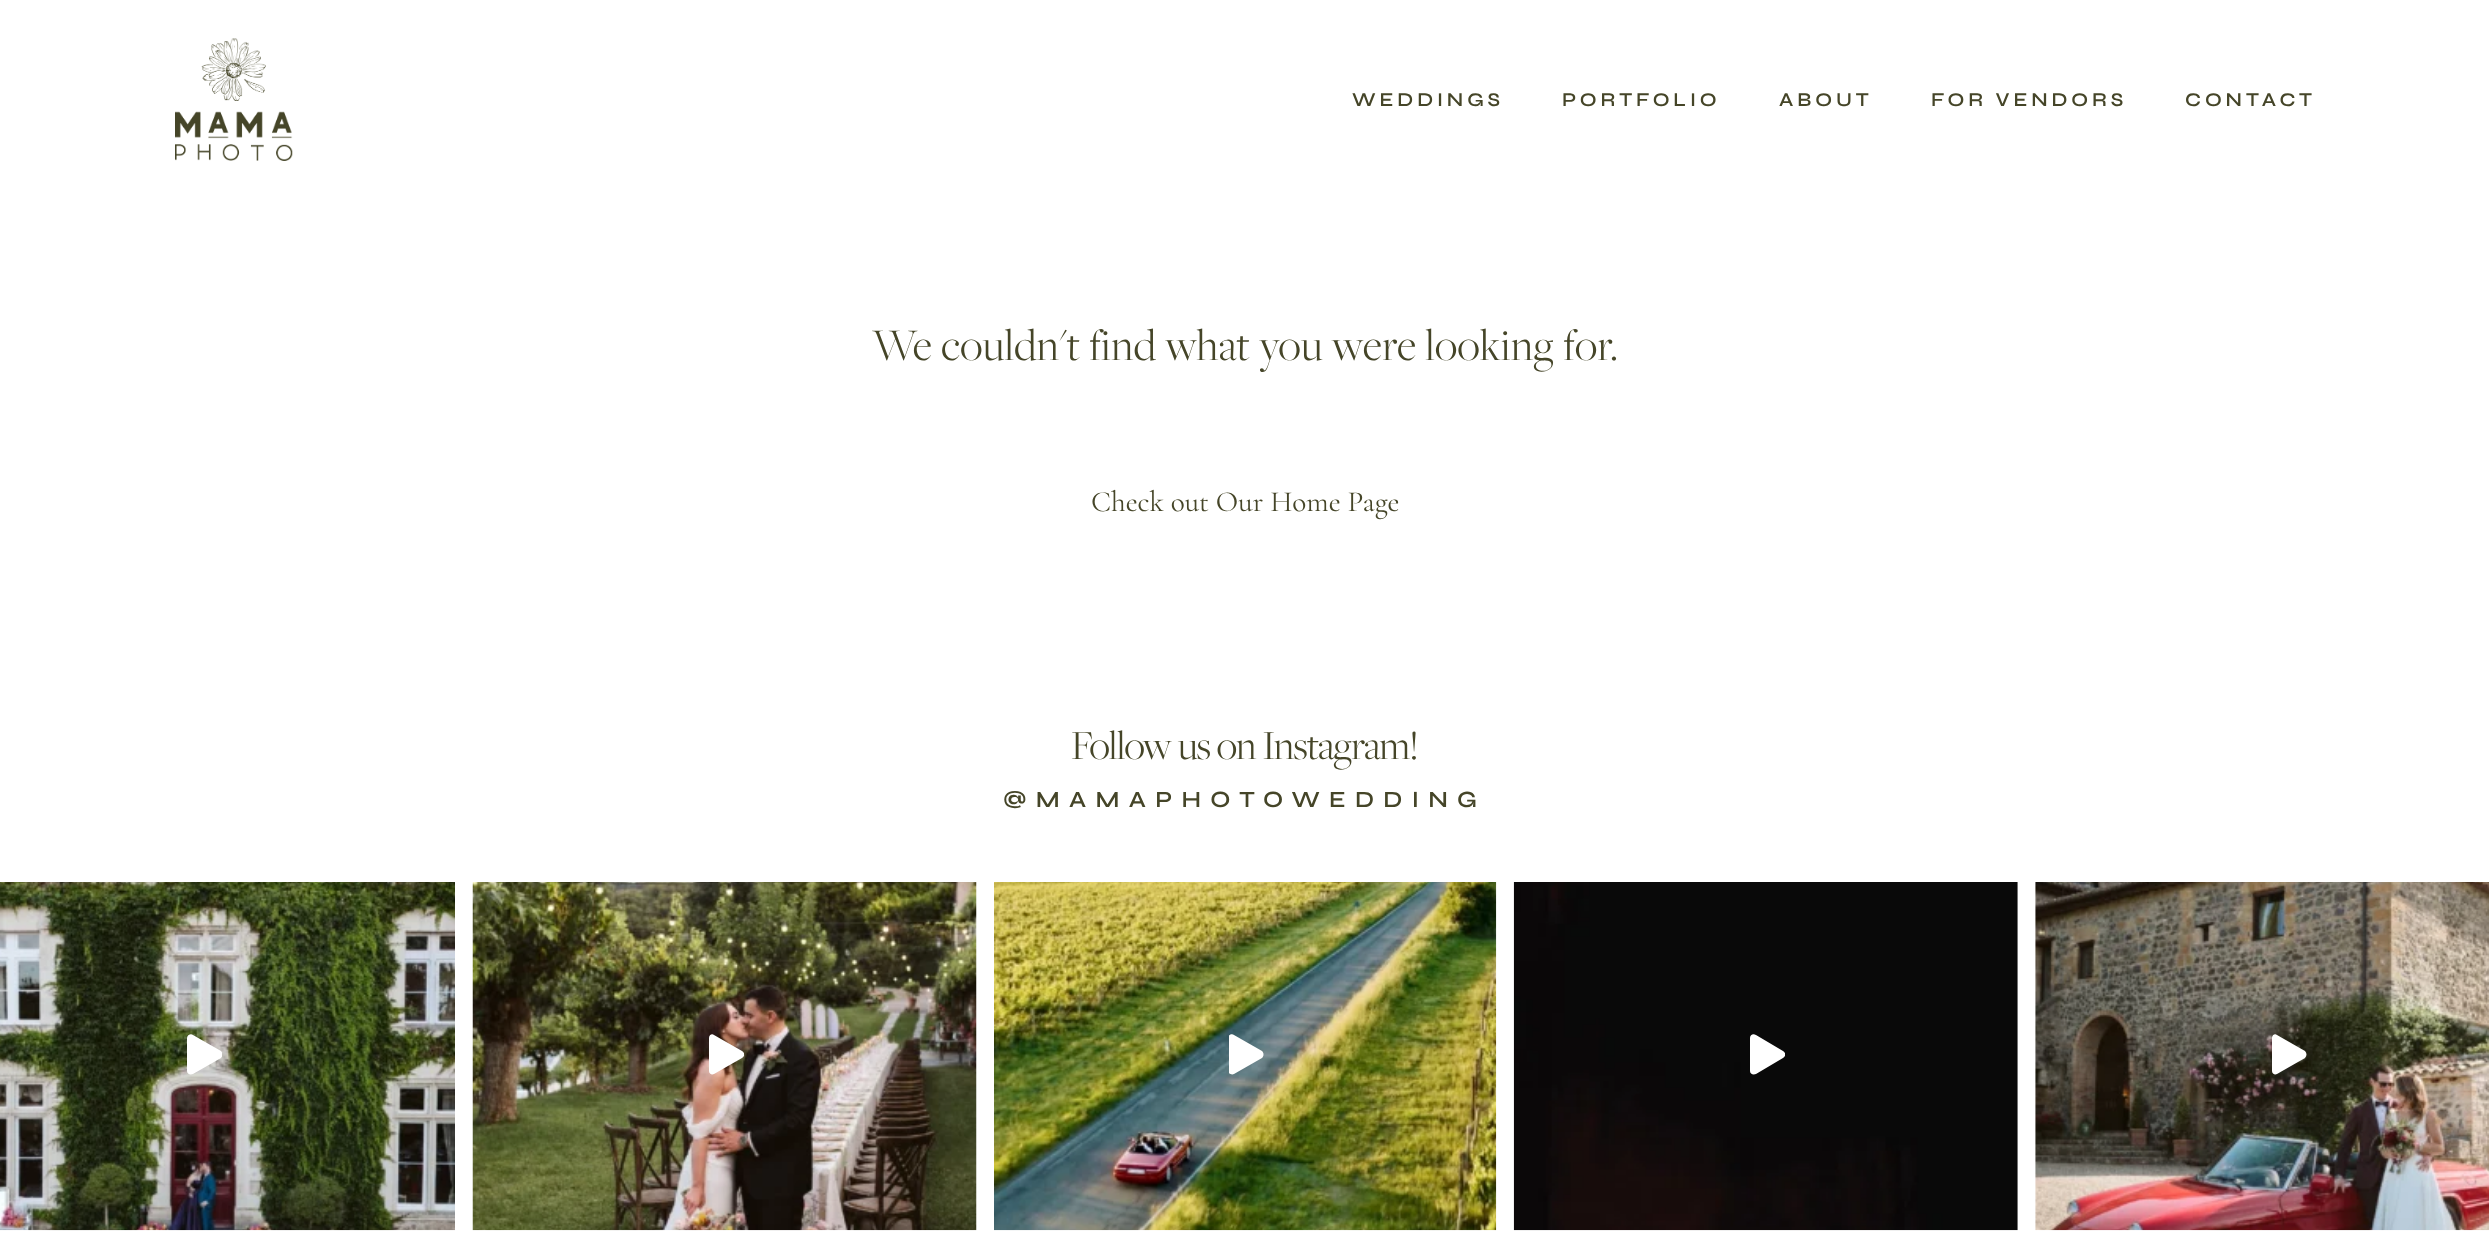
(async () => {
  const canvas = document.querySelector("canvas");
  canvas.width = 2489;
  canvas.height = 1242;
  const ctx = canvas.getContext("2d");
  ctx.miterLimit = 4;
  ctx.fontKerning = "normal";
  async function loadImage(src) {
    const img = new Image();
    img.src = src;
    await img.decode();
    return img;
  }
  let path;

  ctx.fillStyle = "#ffffff";
  ctx.fillRect(0, 0, 2489, 1242);
  ctx.drawImage(await loadImage("img/1.png"), 175, 38, 118, 123);
  ctx.drawImage(await loadImage("img/2.png"), 0, 882, 455, 349);
  ctx.save();
  ctx.beginPath();
  ctx.rect(187, 1034, 35, 41);
  ctx.clip();
  path = new Path2D("M221 1051L193 1035C191 1033 187 1035 187 1038V1071C187 1074 190 1075 193 1074L221 1058C223 1056 223 1053 221 1051Z");
  ctx.fill(path);
  ctx.restore();
  ctx.drawImage(await loadImage("img/3.png"), 472, 882, 505, 349);
  ctx.save();
  ctx.beginPath();
  ctx.rect(709, 1034, 35, 41);
  ctx.clip();
  path = new Path2D("M742 1051L714 1035C712 1033 709 1035 709 1038V1071C709 1074 712 1075 714 1074L742 1058C745 1056 745 1053 742 1051Z");
  ctx.fill(path);
  ctx.restore();
  ctx.drawImage(await loadImage("img/4.png"), 994, 882, 503, 349);
  ctx.save();
  ctx.beginPath();
  ctx.rect(1229, 1034, 36, 41);
  ctx.clip();
  path = new Path2D("M1262 1051L1234 1035C1232 1033 1228 1035 1228 1038V1071C1228 1074 1232 1075 1234 1074L1262 1058C1264 1056 1264 1053 1262 1051Z");
  ctx.fill(path);
  ctx.restore();
  ctx.drawImage(await loadImage("img/5.png"), 1513, 882, 505, 349);
  ctx.save();
  ctx.beginPath();
  ctx.rect(1750, 1034, 35, 41);
  ctx.clip();
  path = new Path2D("M1783 1051L1756 1035C1753 1033 1750 1035 1750 1038V1071C1750 1074 1753 1075 1756 1074L1783 1058C1786 1056 1786 1053 1783 1051Z");
  ctx.fill(path);
  ctx.restore();
  ctx.drawImage(await loadImage("img/6.png"), 2035, 882, 454, 349);
  path = new Path2D("M2305 1051L2277 1035C2275 1033 2272 1035 2272 1038V1071C2272 1074 2275 1075 2277 1074L2305 1058C2307 1056 2307 1053 2305 1051Z");
  ctx.fill(path);
  ctx.letterSpacing = "3.9px";
  ctx.font = "600 19.5px Syne";
  ctx.fillStyle = "#454528";
  for (const [text, x, y] of [
    ["WEDDINGS", 1352, 106],
    ["PORTFOLIO", 1562, 106],
    ["ABOUT", 1779, 106],
    ["FOR VENDORS", 1931, 106],
    ["CONTACT", 2185, 106],
  ]) {
    ctx.fillText(text, x, y);
  }
  ctx.letterSpacing = "0.45px";
  ctx.font = "300 46.75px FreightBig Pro";
  ctx.fillText("We couldn't find what you were looking for.", 872, 360);
  ctx.letterSpacing = "0px";
  ctx.font = "29.25px Cormorant Garamond";
  ctx.fillText("Check out Our Home Page", 1091, 511);
  ctx.letterSpacing = "-0.9px";
  ctx.font = "300 42.75px FreightBig Pro";
  ctx.fillText("Follow us on Instagram!", 1071, 759);
  ctx.letterSpacing = "9.3px";
  ctx.font = "600 23.35px Syne";
  ctx.fillText("@MAMAPHOTOWEDDING", 1003, 807);
})();
